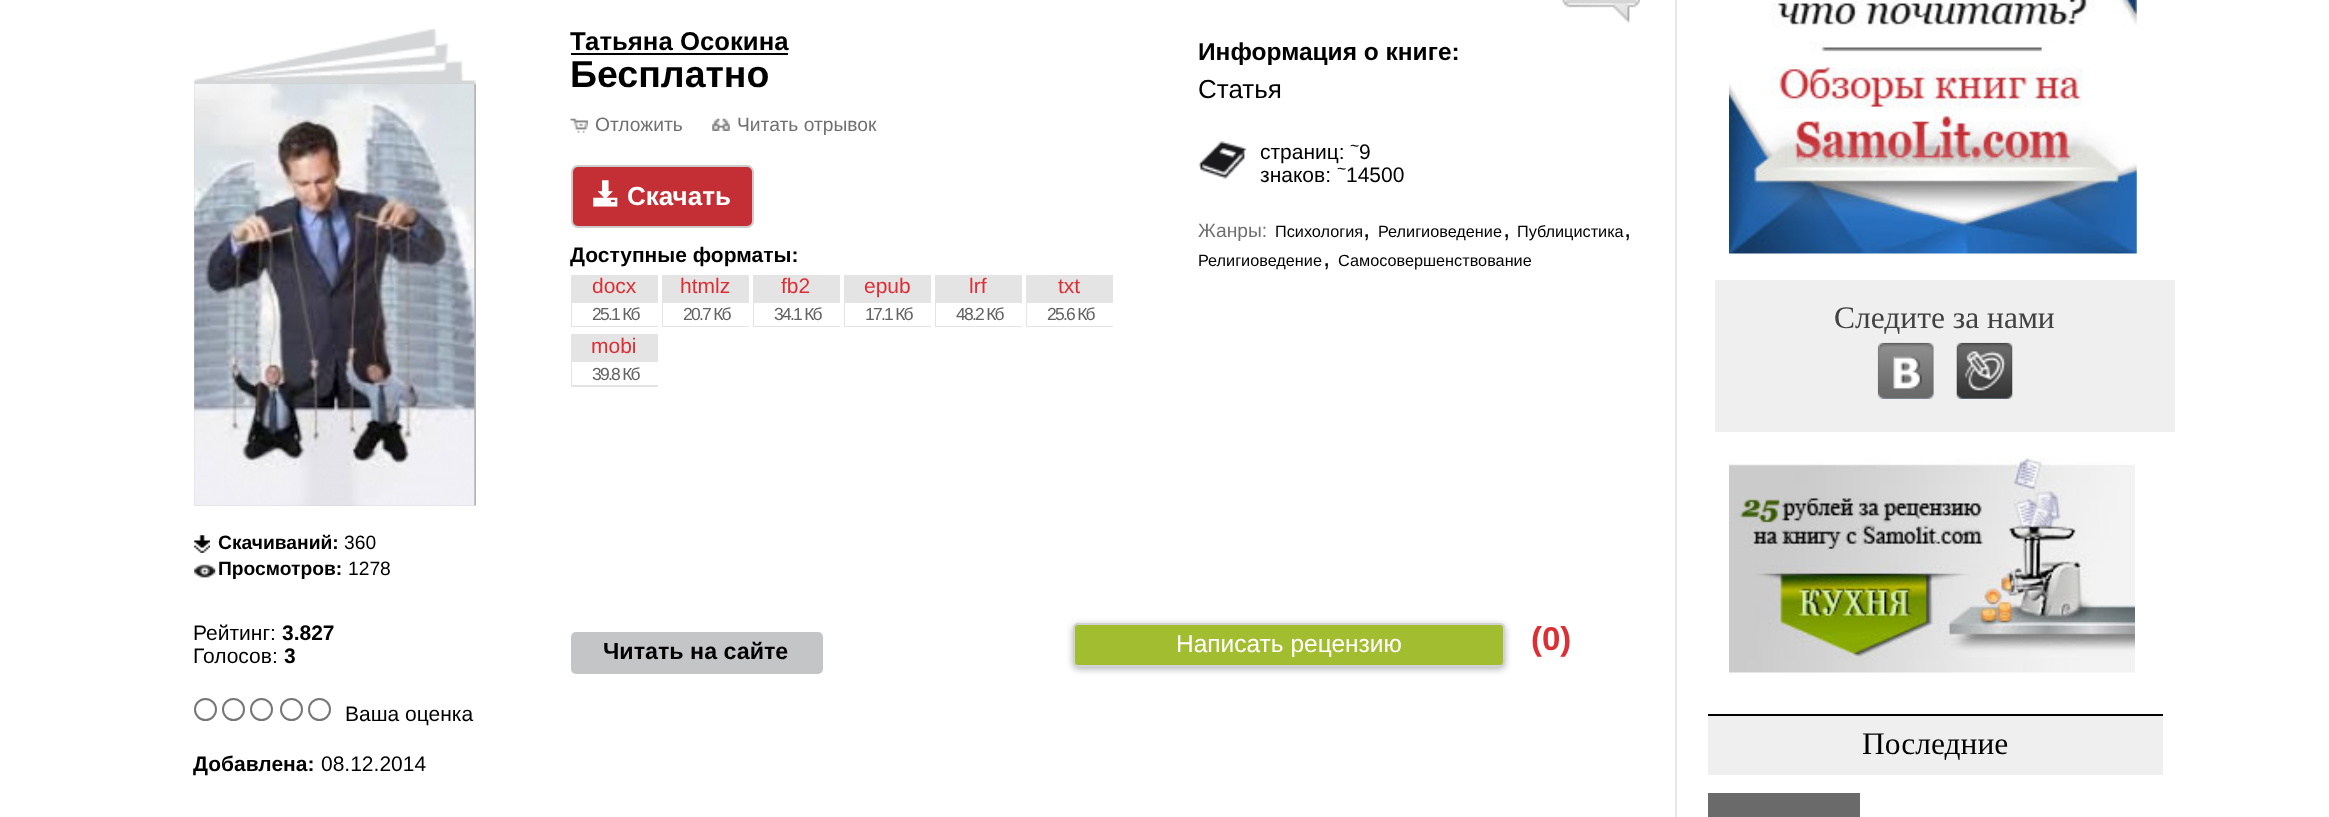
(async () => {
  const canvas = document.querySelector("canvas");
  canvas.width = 2329;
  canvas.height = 817;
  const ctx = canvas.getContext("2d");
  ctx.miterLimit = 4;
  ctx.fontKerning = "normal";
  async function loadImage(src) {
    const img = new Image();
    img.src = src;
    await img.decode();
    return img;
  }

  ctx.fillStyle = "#ffffff";
  ctx.fillRect(0, 0, 2329, 817);
  ctx.fillStyle = "#e7e7e7";
  ctx.fillRect(1675, 0, 2, 817);
  ctx.drawImage(await loadImage("img/1.png"), 1562, 0, 78, 23);
  ctx.fillStyle = "#000000";
  ctx.fillRect(571, 53, 217, 2);
  ctx.drawImage(await loadImage("img/2.png"), 570, 118, 18, 15);
  ctx.drawImage(await loadImage("img/3.png"), 712, 118, 18, 13);
  ctx.fillStyle = "#c32f35";
  ctx.beginPath();
  ctx.roundRect(572, 166, 181, 61, 6);
  ctx.fill();
  ctx.strokeStyle = "#cccccc";
  ctx.lineWidth = 2;
  ctx.stroke();
  ctx.drawImage(await loadImage("img/4.png"), 593, 180, 25, 27);
  for (const [x, y, w, h, color] of [
    [571, 275, 87, 52, "#e4e4e4"],
    [572, 303, 86, 23, "#ffffff"],
    [662, 275, 87, 52, "#e4e4e4"],
    [663, 303, 86, 23, "#ffffff"],
    [753, 275, 87, 52, "#e4e4e4"],
    [754, 303, 86, 23, "#ffffff"],
    [844, 275, 87, 52, "#e4e4e4"],
    [845, 303, 86, 23, "#ffffff"],
    [935, 275, 87, 52, "#e4e4e4"],
    [936, 303, 86, 23, "#ffffff"],
    [1026, 275, 87, 52, "#e4e4e4"],
    [1027, 303, 86, 23, "#ffffff"],
    [571, 334, 87, 53, "#e4e4e4"],
    [572, 362, 86, 23, "#ffffff"],
  ]) {
    ctx.fillStyle = color;
    ctx.fillRect(x, y, w, h);
  }
  ctx.drawImage(await loadImage("img/5.png"), 1198, 141, 48, 38);
  ctx.drawImage(await loadImage("img/6.png"), 194, 28, 282, 478);
  ctx.drawImage(await loadImage("img/7.png"), 194, 83, 281, 423);
  ctx.drawImage(await loadImage("img/8.png"), 194, 535, 16, 18);
  ctx.drawImage(await loadImage("img/9.png"), 194, 564, 22, 14);
  ctx.beginPath();
  ctx.arc(205.5, 709.5, 10.5, 0, Math.PI * 2);
  ctx.strokeStyle = "#767676";
  ctx.stroke();
  ctx.beginPath();
  ctx.arc(233.5, 709.5, 10.5, 0, Math.PI * 2);
  ctx.stroke();
  ctx.beginPath();
  ctx.arc(261.5, 709.5, 10.5, 0, Math.PI * 2);
  ctx.stroke();
  ctx.beginPath();
  ctx.arc(291.5, 709.5, 10.5, 0, Math.PI * 2);
  ctx.stroke();
  ctx.beginPath();
  ctx.arc(319.5, 709.5, 10.5, 0, Math.PI * 2);
  ctx.stroke();
  ctx.fillStyle = "#c4c5c7";
  ctx.beginPath();
  ctx.roundRect(571, 632, 252, 42, 5);
  ctx.fill();
  ctx.fillStyle = "rgba(0, 0, 0, 0.3)";
  ctx.filter = "blur(3.5px)";
  ctx.beginPath();
  ctx.roundRect(1073, 625, 432, 44, 5);
  ctx.fill();
  ctx.filter = "none";
  ctx.fillStyle = "#a2bd30";
  ctx.beginPath();
  ctx.roundRect(1074, 624, 430, 42, 4);
  ctx.fill();
  ctx.strokeStyle = "#d2d2d2";
  ctx.stroke();
  ctx.drawImage(await loadImage("img/10.png"), 1729, 0, 408, 254);
  ctx.fillStyle = "#efefef";
  ctx.fillRect(1715, 280, 460, 152);
  ctx.drawImage(await loadImage("img/11.png"), 1877, 342, 57, 57);
  ctx.drawImage(await loadImage("img/12.png"), 1956, 342, 57, 57);
  ctx.drawImage(await loadImage("img/13.png"), 1729, 458, 406, 215);
  for (const [x, y, w, h, color] of [
    [1708, 716, 455, 59, "#efefef"],
    [1708, 714, 455, 2, "#000000"],
    [1708, 793, 152, 24, "#6a6a6a"],
  ]) {
    ctx.fillStyle = color;
    ctx.fillRect(x, y, w, h);
  }
  ctx.font = "bold 25.75px Liberation Sans";
  ctx.fillStyle = "#000000";
  ctx.fillText("Татьяна Осокина", 570, 50);
  ctx.font = "bold 37.5px Liberation Sans";
  ctx.fillText("Бесплатно", 570, 87);
  ctx.font = "19.25px Liberation Sans";
  ctx.fillStyle = "#717070";
  ctx.fillText("Отложить", 595, 131);
  ctx.fillText("Читать отрывок", 737, 131);
  ctx.font = "bold 26px Liberation Sans";
  ctx.fillStyle = "#ffffff";
  ctx.fillText("Скачать", 627, 205);
  ctx.font = "bold 21px Liberation Sans";
  ctx.fillStyle = "#000000";
  ctx.fillText("Доступные форматы:", 570, 262);
  ctx.font = "21px Liberation Sans";
  ctx.fillStyle = "#dc2e35";
  ctx.fillText("docx", 592, 293);
  ctx.letterSpacing = "-1.75px";
  ctx.font = "17.5px Liberation Sans";
  ctx.fillStyle = "#626262";
  ctx.fillText("25.1 Кб", 592, 320);
  ctx.letterSpacing = "0px";
  ctx.font = "21px Liberation Sans";
  ctx.fillStyle = "#dc2e35";
  ctx.fillText("htmlz", 680, 293);
  ctx.letterSpacing = "-1.75px";
  ctx.font = "17.5px Liberation Sans";
  ctx.fillStyle = "#626262";
  ctx.fillText("20.7 Кб", 683, 320);
  ctx.letterSpacing = "0px";
  ctx.font = "21px Liberation Sans";
  ctx.fillStyle = "#dc2e35";
  ctx.fillText("fb2", 781, 293);
  ctx.letterSpacing = "-1.75px";
  ctx.font = "17.5px Liberation Sans";
  ctx.fillStyle = "#626262";
  ctx.fillText("34.1 Кб", 774, 320);
  ctx.letterSpacing = "0px";
  ctx.font = "21px Liberation Sans";
  ctx.fillStyle = "#dc2e35";
  ctx.fillText("epub", 864, 293);
  ctx.letterSpacing = "-1.75px";
  ctx.font = "17.5px Liberation Sans";
  ctx.fillStyle = "#626262";
  ctx.fillText("17.1 Кб", 865, 320);
  ctx.letterSpacing = "0px";
  ctx.font = "21px Liberation Sans";
  ctx.fillStyle = "#dc2e35";
  ctx.fillText("lrf", 969, 293);
  ctx.letterSpacing = "-1.75px";
  ctx.font = "17.5px Liberation Sans";
  ctx.fillStyle = "#626262";
  ctx.fillText("48.2 Кб", 956, 320);
  ctx.letterSpacing = "0px";
  ctx.font = "21px Liberation Sans";
  ctx.fillStyle = "#dc2e35";
  ctx.fillText("txt", 1058, 293);
  ctx.letterSpacing = "-1.75px";
  ctx.font = "17.5px Liberation Sans";
  ctx.fillStyle = "#626262";
  ctx.fillText("25.6 Кб", 1047, 320);
  ctx.letterSpacing = "0px";
  ctx.font = "21px Liberation Sans";
  ctx.fillStyle = "#dc2e35";
  ctx.fillText("mobi", 591, 353);
  ctx.letterSpacing = "-1.75px";
  ctx.font = "17.5px Liberation Sans";
  ctx.fillStyle = "#626262";
  ctx.fillText("39.8 Кб", 592, 380);
  ctx.letterSpacing = "0px";
  ctx.font = "bold 24.5px Liberation Sans";
  ctx.fillStyle = "#000000";
  ctx.fillText("Информация о книге:", 1198, 60);
  ctx.font = "26px Liberation Sans";
  ctx.fillText("Статья", 1198, 98);
  ctx.font = "21px Liberation Sans";
  ctx.fillText("страниц:", 1260, 159);
  ctx.font = "16px Liberation Sans";
  ctx.fillText("~", 1350, 151);
  ctx.font = "21px Liberation Sans";
  ctx.fillText("9", 1359, 159);
  ctx.fillText("знаков:", 1260, 182);
  ctx.font = "16px Liberation Sans";
  ctx.fillText("~", 1337, 174);
  ctx.font = "21px Liberation Sans";
  ctx.fillText("14500", 1346, 182);
  ctx.font = "19.25px Liberation Sans";
  ctx.fillStyle = "#717070";
  ctx.fillText("Жанры:", 1198, 237);
  ctx.font = "16.25px Liberation Sans";
  ctx.fillStyle = "#000000";
  ctx.fillText("Психология", 1275, 237);
  ctx.font = "26px Liberation Sans";
  ctx.fillText(",", 1363, 237);
  ctx.font = "16.25px Liberation Sans";
  ctx.fillText("Религиоведение", 1378, 237);
  ctx.font = "26px Liberation Sans";
  ctx.fillText(",", 1503, 237);
  ctx.font = "16.25px Liberation Sans";
  ctx.fillText("Публицистика", 1517, 237);
  ctx.font = "26px Liberation Sans";
  ctx.fillText(",", 1624, 237);
  ctx.font = "16.25px Liberation Sans";
  ctx.fillText("Религиоведение", 1198, 266);
  ctx.font = "26px Liberation Sans";
  ctx.fillText(",", 1323, 266);
  ctx.font = "16.25px Liberation Sans";
  ctx.fillText("Самосовершенствование", 1338, 266);
  ctx.font = "bold 19.25px Liberation Sans";
  ctx.fillText("Скачиваний:", 218, 549);
  ctx.font = "19.25px Liberation Sans";
  ctx.fillText("360", 344, 549);
  ctx.font = "bold 19.25px Liberation Sans";
  ctx.fillText("Просмотров:", 218, 575);
  ctx.font = "19.25px Liberation Sans";
  ctx.fillText("1278", 348, 575);
  ctx.font = "21px Liberation Sans";
  ctx.fillText("Рейтинг:", 193, 640);
  ctx.font = "bold 21px Liberation Sans";
  ctx.fillText("3.827", 282, 640);
  ctx.font = "21px Liberation Sans";
  ctx.fillText("Голосов:", 193, 663);
  ctx.font = "bold 21px Liberation Sans";
  ctx.fillText("3", 284, 663);
  ctx.font = "21px Liberation Sans";
  ctx.fillText("Ваша оценка", 345, 721);
  ctx.font = "bold 21px Liberation Sans";
  ctx.fillText("Добавлена:", 193, 771);
  ctx.font = "21px Liberation Sans";
  ctx.fillText("08.12.2014", 321, 771);
  ctx.font = "bold 23.25px Liberation Sans";
  ctx.fillText("Читать на сайте", 603, 659);
  ctx.font = "24.5px Liberation Sans";
  ctx.fillStyle = "#ffffff";
  ctx.fillText("Написать рецензию", 1176, 652);
  ctx.font = "bold 33px Liberation Sans";
  ctx.fillStyle = "#dc2e35";
  ctx.fillText("(0)", 1531, 650);
  ctx.font = "31.5px Liberation Serif";
  ctx.fillStyle = "#424242";
  ctx.fillText("Следите за нами", 1834, 328);
  ctx.fillStyle = "#000000";
  ctx.fillText("Последние", 1862, 754);
})();
